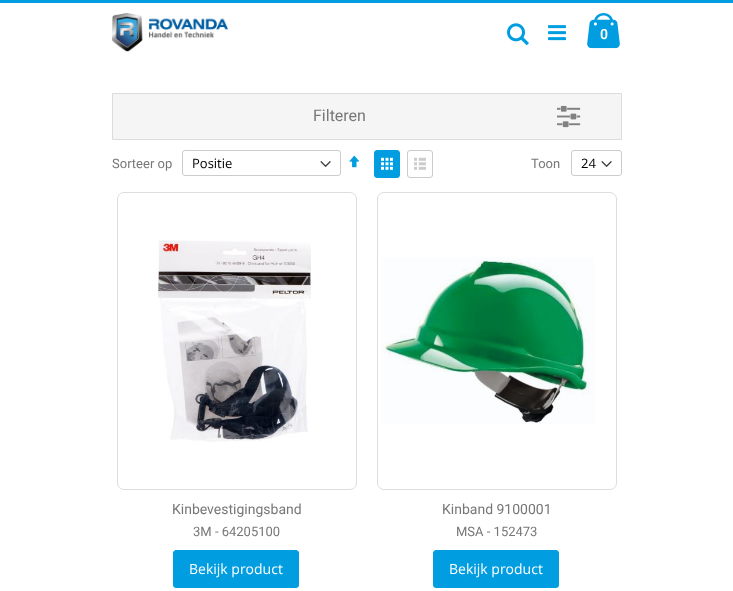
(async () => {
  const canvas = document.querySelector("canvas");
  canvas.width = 733;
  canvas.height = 591;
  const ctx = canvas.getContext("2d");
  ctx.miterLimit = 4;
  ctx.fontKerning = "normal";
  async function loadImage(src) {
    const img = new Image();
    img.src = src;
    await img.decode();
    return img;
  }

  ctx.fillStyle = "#ffffff";
  ctx.fillRect(0, 0, 733, 591);
  ctx.fillStyle = "#009de0";
  ctx.fillRect(0, 0, 733, 3);
  ctx.drawImage(await loadImage("img/1.png"), 112, 13, 116, 39);
  ctx.drawImage(await loadImage("img/2.png"), 507, 23, 22, 23);
  ctx.drawImage(await loadImage("img/3.png"), 548, 25, 18, 16);
  ctx.drawImage(await loadImage("img/4.png"), 587, 13, 33, 36);
  ctx.fillStyle = "#f5f5f5";
  ctx.beginPath();
  ctx.rect(112.5, 93.5, 509, 46);
  ctx.fill();
  ctx.strokeStyle = "#dcdcda";
  ctx.stroke();
  ctx.drawImage(await loadImage("img/5.png"), 557, 105, 24, 23);
  ctx.drawImage(await loadImage("img/6.png"), 320, 161, 11, 6);
  ctx.beginPath();
  ctx.roundRect(182.5, 150.5, 158, 25, 2.5);
  ctx.strokeStyle = "#cccccc";
  ctx.stroke();
  ctx.drawImage(await loadImage("img/7.png"), 349, 155, 10, 13);
  ctx.fillStyle = "#009de0";
  ctx.beginPath();
  ctx.roundRect(374.5, 150.5, 25, 27, 2.5);
  ctx.fill();
  ctx.strokeStyle = "#009de0";
  ctx.stroke();
  ctx.drawImage(await loadImage("img/8.png"), 381, 157, 12, 13);
  ctx.beginPath();
  ctx.roundRect(407.5, 150.5, 25, 27, 2.5);
  ctx.strokeStyle = "#cccccc";
  ctx.stroke();
  ctx.drawImage(await loadImage("img/9.png"), 414, 157, 12, 13);
  ctx.drawImage(await loadImage("img/6.png"), 601, 161, 11, 6);
  ctx.beginPath();
  ctx.roundRect(571.5, 150.5, 50, 25, 2.5);
  ctx.stroke();
  ctx.beginPath();
  ctx.roundRect(117.5, 192.5, 239, 297, 6.5);
  ctx.strokeStyle = "#dddddd";
  ctx.stroke();
  ctx.drawImage(await loadImage("img/10.png"), 158, 240, 153, 202);
  ctx.beginPath();
  ctx.roundRect(173.5, 550.5, 125, 37, 2.5);
  ctx.fill();
  ctx.strokeStyle = "#009de0";
  ctx.stroke();
  ctx.beginPath();
  ctx.roundRect(377.5, 192.5, 239, 297, 6.5);
  ctx.strokeStyle = "#dddddd";
  ctx.stroke();
  ctx.drawImage(await loadImage("img/11.png"), 381, 257, 214, 167);
  ctx.beginPath();
  ctx.roundRect(433.5, 550.5, 125, 37, 2.5);
  ctx.fill();
  ctx.strokeStyle = "#009de0";
  ctx.stroke();
  ctx.font = "600 14px Roboto";
  ctx.fillStyle = "#ffffff";
  ctx.fillText("0", 600, 39);
  ctx.font = "16px Roboto";
  ctx.fillStyle = "#777777";
  ctx.fillText("Filteren", 313, 121);
  ctx.font = "13px Roboto";
  ctx.fillText("Sorteer op", 112, 168);
  ctx.font = "13px Open Sans";
  ctx.fillStyle = "#000000";
  ctx.fillText("Positie", 192, 168);
  ctx.font = "13px Roboto";
  ctx.fillStyle = "#777777";
  ctx.fillText("Toon", 531, 168);
  ctx.font = "13px Open Sans";
  ctx.fillStyle = "#000000";
  ctx.fillText("24", 581, 168);
  ctx.font = "14px Roboto";
  ctx.fillStyle = "#777777";
  ctx.fillText("Kinbevestigingsband", 172, 514);
  ctx.font = "13px Roboto";
  ctx.fillText("3M - 64205100", 193, 536);
  ctx.font = "14px Open Sans";
  ctx.fillStyle = "#ffffff";
  ctx.fillText("Bekijk product", 189, 574);
  ctx.font = "14px Roboto";
  ctx.fillStyle = "#777777";
  ctx.fillText("Kinband 9100001", 442, 514);
  ctx.font = "13px Roboto";
  ctx.fillText("MSA - 152473", 456, 536);
  ctx.font = "14px Open Sans";
  ctx.fillStyle = "#ffffff";
  ctx.fillText("Bekijk product", 449, 574);
})();
